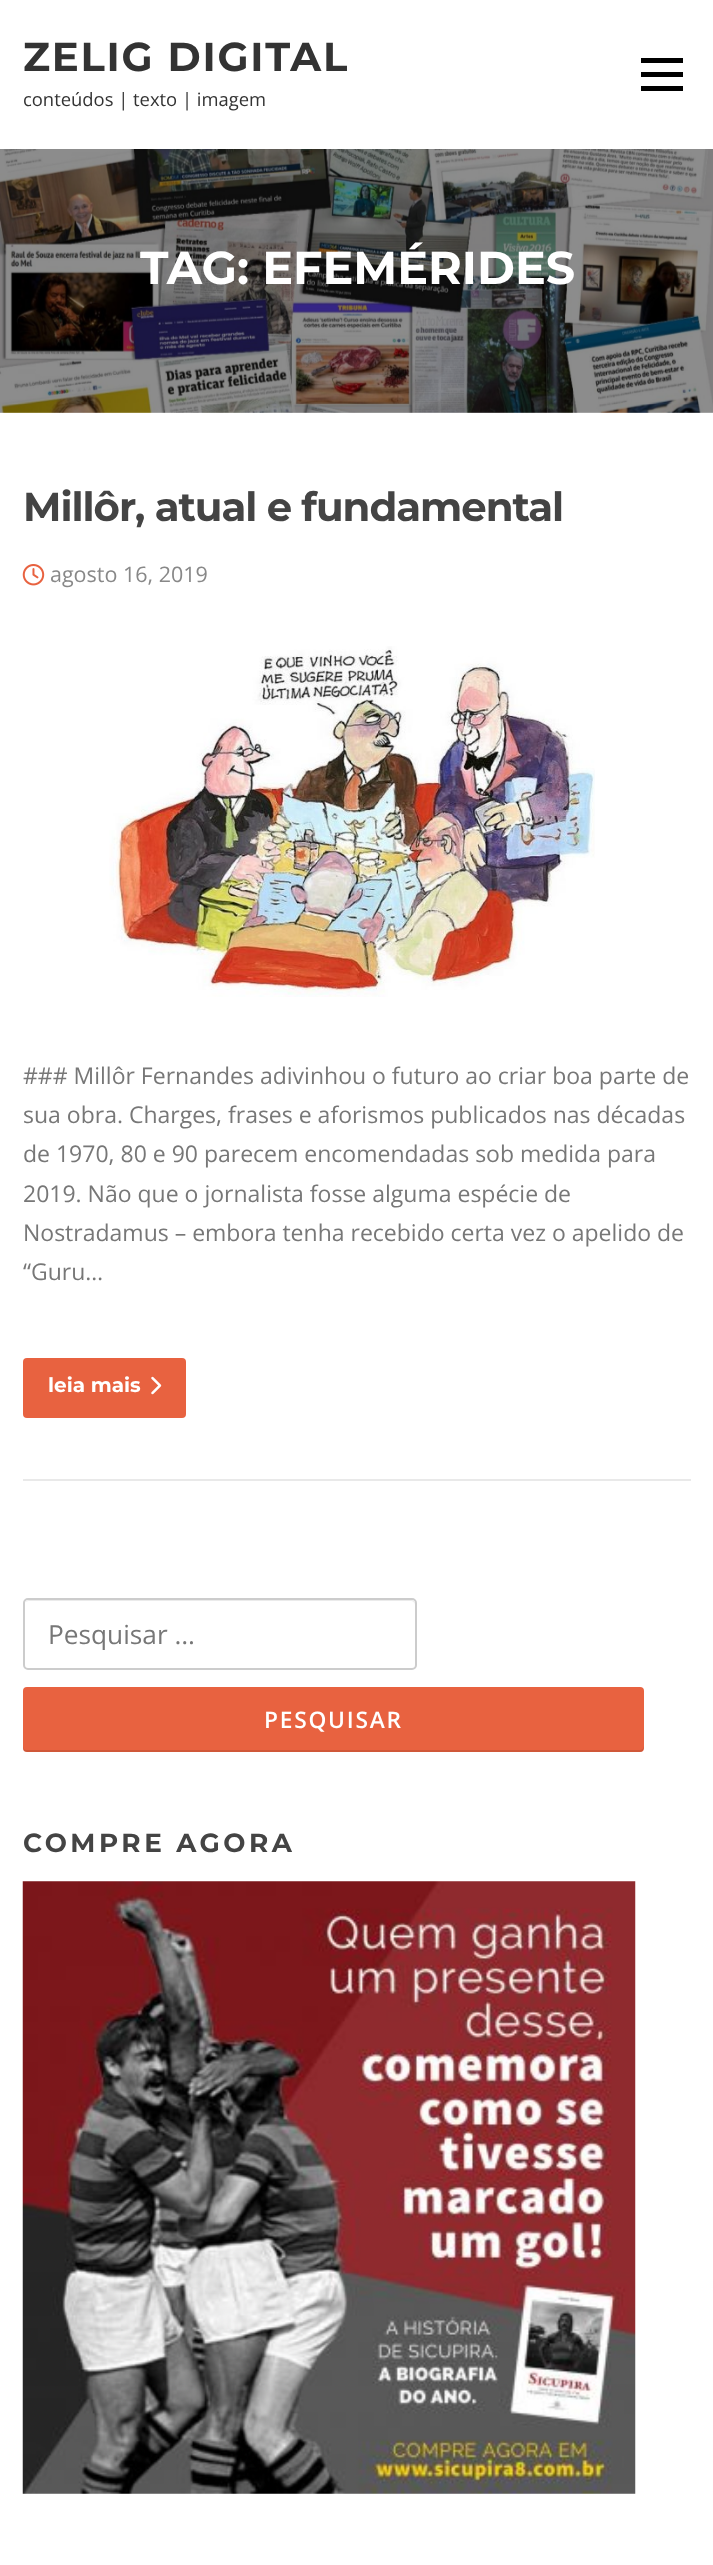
(async () => {
  const canvas = document.querySelector("canvas");
  canvas.width = 713;
  canvas.height = 2565;
  const ctx = canvas.getContext("2d");
  ctx.miterLimit = 4;
  ctx.fontKerning = "normal";
  async function loadImage(src) {
    const img = new Image();
    img.src = src;
    await img.decode();
    return img;
  }
  let path;

  ctx.fillStyle = "#ffffff";
  ctx.fillRect(0, 0, 713, 2565);
  for (const [x, y, w, h, color] of [
    [641, 72, 42, 5, "#000000"],
    [641, 58, 42, 5, "#000000"],
    [641, 86, 42, 5, "#000000"],
  ]) {
    ctx.fillStyle = color;
    ctx.fillRect(x, y, w, h);
  }
  ctx.drawImage(await loadImage("img/1.png"), 0, 149, 713, 264);
  ctx.fillStyle = "#e9e9e9";
  ctx.fillRect(23, 1479, 668, 2);
  ctx.drawImage(await loadImage("img/2.png"), 22, 564, 23, 22);
  ctx.drawImage(await loadImage("img/3.png"), 109, 646, 486, 351);
  ctx.fillStyle = "#e86240";
  ctx.beginPath();
  ctx.roundRect(23, 1358, 163, 60, 4);
  ctx.fill();
  ctx.drawImage(await loadImage("img/4.png"), 151, 1376, 11, 19);
  ctx.fillStyle = "#ebebeb";
  path = new Path2D("M28 1601H411C413 1601 415 1603 415 1605V1604C415 1602 413 1600 411 1600H29C28 1600 26 1601 26 1602Z");
  ctx.fill(path);
  ctx.beginPath();
  ctx.roundRect(24, 1599, 392, 70, 4);
  ctx.strokeStyle = "#cccccc";
  ctx.lineWidth = 2;
  ctx.stroke();
  ctx.fillStyle = "#e86240";
  ctx.beginPath();
  ctx.roundRect(23, 1687, 621, 65, 4);
  ctx.fill();
  ctx.fillStyle = "rgba(0, 0, 0, 0.1)";
  path = new Path2D("M23 1746C23 1749 23 1752 27 1752H642L643 1750C644 1749 644 1747 644 1746C644 1748 642 1750 640 1750H26C24 1750 23 1748 23 1746Z");
  ctx.fill(path);
  ctx.drawImage(await loadImage("img/5.png"), 22, 1881, 614, 613);
  ctx.letterSpacing = "1.75px";
  ctx.font = "bold 40.25px Montserrat";
  ctx.fillStyle = "#333333";
  ctx.fillText("ZELIG DIGITAL", 23, 71);
  ctx.letterSpacing = "0px";
  ctx.font = "18.4px Open Sans";
  ctx.fillText("conteúdos | texto | imagem", 23, 106);
  ctx.font = "bold 46px Montserrat";
  ctx.fillStyle = "#ffffff";
  ctx.fillText("TAG: EFEMÉRIDES", 140, 284);
  ctx.letterSpacing = "-1.05px";
  ctx.font = "bold 40.25px Montserrat";
  ctx.fillStyle = "#444444";
  ctx.fillText("Millôr, atual e fundamental", 23, 521);
  ctx.letterSpacing = "0px";
  ctx.font = "21.5px Open Sans";
  ctx.fillStyle = "#888888";
  ctx.fillText("agosto 16, 2019", 50, 582);
  ctx.font = "23px Open Sans";
  ctx.fillStyle = "#777777";
  for (const [text, x, y] of [
    ["### Millôr Fernandes adivinhou o futuro ao criar boa parte de", 23, 1084],
    ["sua obra. Charges, frases e aforismos publicados nas décadas", 23, 1123],
    ["de 1970, 80 e 90 parecem encomendadas sob medida para", 23, 1162],
    ["2019. Não que o jornalista fosse alguma espécie de", 23, 1202],
    ["Nostradamus – embora tenha recebido certa vez o apelido de", 23, 1241],
    ["“Guru…", 23, 1280],
  ]) {
    ctx.fillText(text, x, y);
  }
  ctx.font = "bold 20px Montserrat";
  ctx.fillStyle = "#ffffff";
  ctx.fillText("leia mais", 48, 1392);
  ctx.save();
  ctx.beginPath();
  ctx.rect(47, 1615, 338, 35);
  ctx.clip();
  ctx.font = "26.25px Open Sans";
  ctx.fillStyle = "#777777";
  ctx.fillText("Pesquisar …", 48, 1644);
  ctx.restore();
  ctx.letterSpacing = "1.75px";
  ctx.font = "600 22.75px Open Sans";
  ctx.fillText("PESQUISAR", 264, 1728);
  ctx.letterSpacing = "3.5px";
  ctx.font = "bold 26.25px Montserrat";
  ctx.fillStyle = "#444444";
  ctx.fillText("COMPRE AGORA", 23, 1852);
})();
